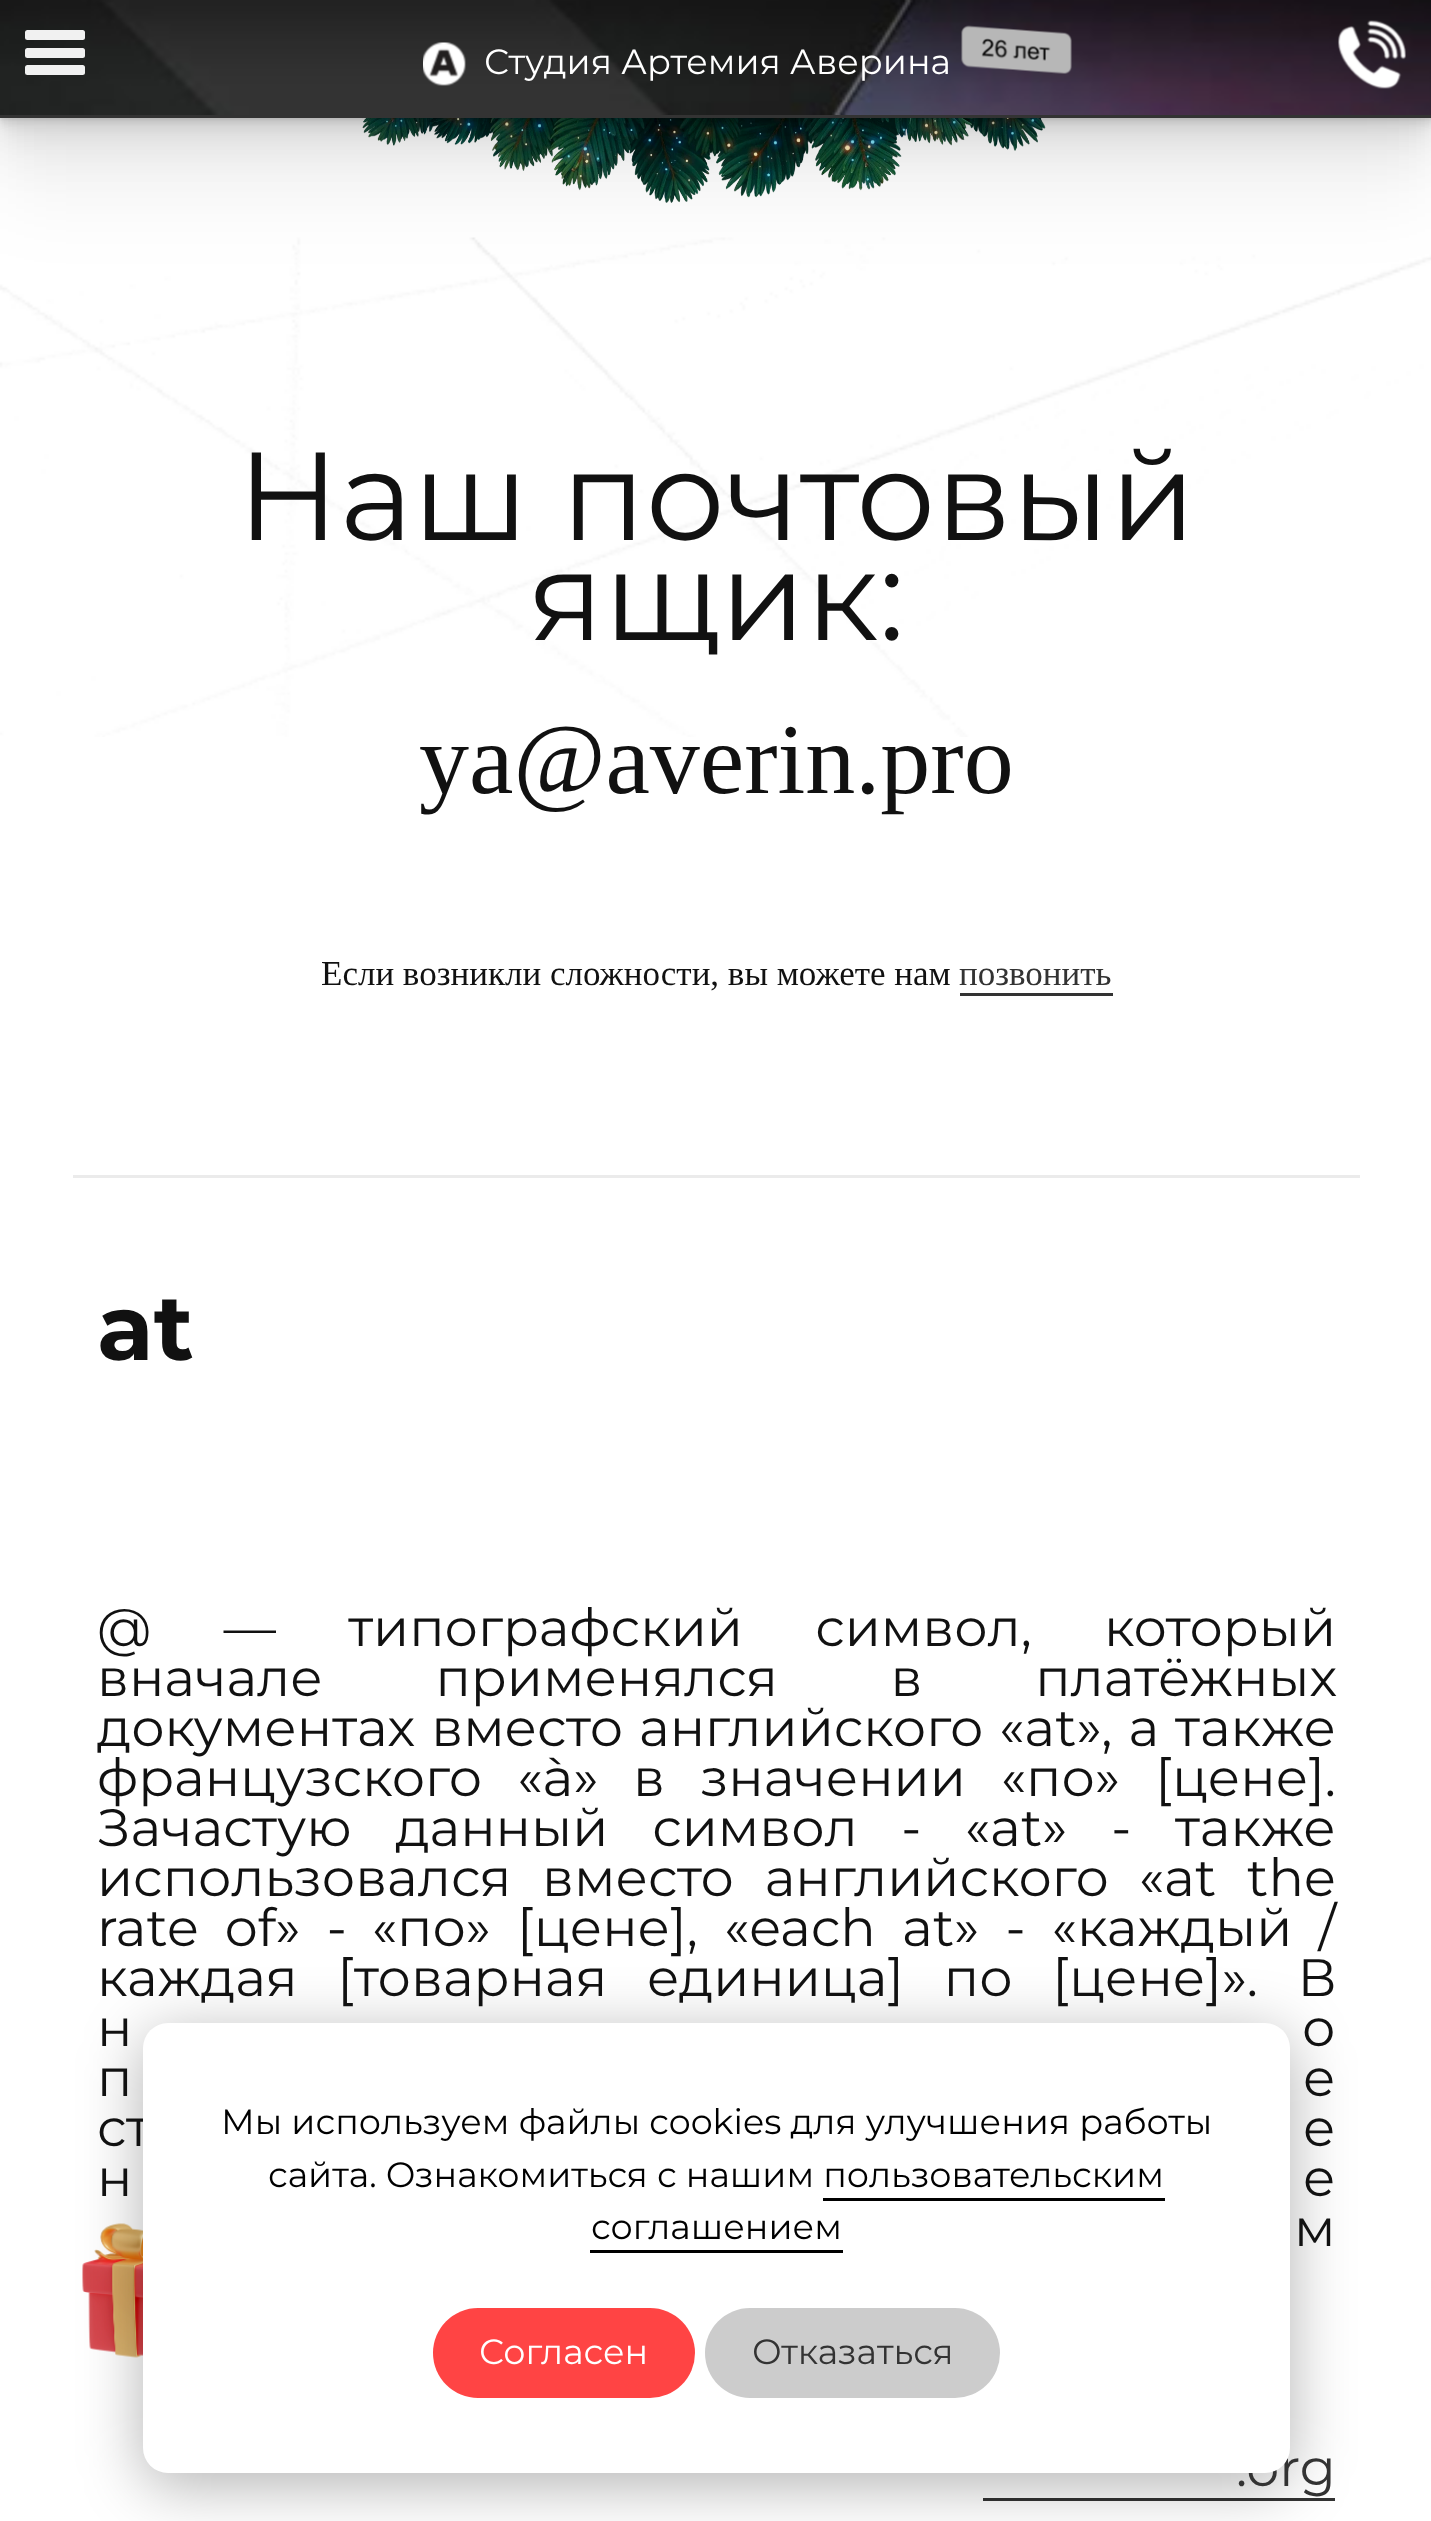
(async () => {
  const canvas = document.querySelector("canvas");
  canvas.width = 1431;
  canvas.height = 2521;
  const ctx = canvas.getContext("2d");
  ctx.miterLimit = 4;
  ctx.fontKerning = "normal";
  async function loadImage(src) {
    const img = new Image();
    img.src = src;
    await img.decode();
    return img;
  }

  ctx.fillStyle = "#ffffff";
  ctx.fillRect(0, 0, 1431, 2521);
  ctx.drawImage(await loadImage("img/5.png"), 362, 118, 684, 85);
  ctx.drawImage(await loadImage("img/6.png"), 0, 237, 1431, 500);
  ctx.fillStyle = "rgba(0, 0, 0, 0.05)";
  ctx.filter = "blur(40px)";
  ctx.beginPath();
  ctx.rect(0, 80, 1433, 118);
  ctx.fill();
  ctx.filter = "none";
  ctx.filter = "blur(20px)";
  ctx.beginPath();
  ctx.rect(0, 40, 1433, 118);
  ctx.fill();
  ctx.filter = "none";
  ctx.filter = "blur(10px)";
  ctx.beginPath();
  ctx.rect(0, 20, 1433, 118);
  ctx.fill();
  ctx.filter = "none";
  ctx.filter = "blur(5px)";
  ctx.beginPath();
  ctx.rect(0, 10, 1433, 118);
  ctx.fill();
  ctx.filter = "none";
  ctx.filter = "blur(2.5px)";
  ctx.beginPath();
  ctx.rect(0, 5, 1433, 118);
  ctx.fill();
  ctx.filter = "none";
  ctx.filter = "blur(1px)";
  ctx.beginPath();
  ctx.rect(0, 3, 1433, 117);
  ctx.fill();
  ctx.filter = "none";
  ctx.fillStyle = "#333333";
  ctx.fillRect(0, 115, 1431, 3);
  ctx.drawImage(await loadImage("img/1.png"), 0, 0, 1431, 115);
  ctx.fillStyle = "#f1f1f1";
  ctx.beginPath();
  ctx.roundRect(25, 30, 60, 10, 2.5);
  ctx.fill();
  ctx.beginPath();
  ctx.roundRect(25, 48, 60, 10, 2.5);
  ctx.fill();
  ctx.beginPath();
  ctx.roundRect(25, 65, 60, 10, 2.5);
  ctx.fill();
  ctx.drawImage(await loadImage("img/2.png"), 423, 42, 43, 44);
  ctx.drawImage(await loadImage("img/3.png"), 961, 25, 111, 49);
  ctx.drawImage(await loadImage("img/4.png"), 1338, 20, 68, 69);
  for (const [x, y, w, h, color] of [
    [960, 993, 153, 3, "#333333"],
    [73, 1175, 1287, 3, "#ebebeb"],
    [983, 2498, 352, 3, "#333333"],
  ]) {
    ctx.fillStyle = color;
    ctx.fillRect(x, y, w, h);
  }
  ctx.drawImage(await loadImage("img/7.png"), 82, 2223, 61, 135);
  ctx.fillStyle = "rgba(0, 0, 0, 0.3)";
  ctx.filter = "blur(31px)";
  ctx.beginPath();
  ctx.roundRect(143, 2035, 1147, 450, 25);
  ctx.fill();
  ctx.filter = "none";
  ctx.font = "35px Montserrat";
  ctx.fillStyle = "#ffffff";
  ctx.fillText("Студия Артемия Аверина", 484, 74);
  ctx.font = "125px Montserrat";
  ctx.fillStyle = "#111111";
  ctx.fillText("Наш почтовый", 237, 540);
  ctx.fillText("ящик:", 528, 640);
  ctx.font = "100px Liberation Serif";
  ctx.fillText("ya@averin.pro", 419, 793);
  ctx.font = "35px Liberation Serif";
  ctx.fillText("Если возникли сложности, вы можете нам", 321, 985);
  ctx.fillStyle = "#333333";
  ctx.fillText("позвонить", 959, 985);
  ctx.font = "bold 92px Montserrat";
  ctx.fillStyle = "#111111";
  ctx.fillText("at", 97, 1360);
  ctx.wordSpacing = "58.5px";
  ctx.font = "52.5px Montserrat";
  ctx.fillText("@ — типографский символ,", 97, 1646);
  ctx.wordSpacing = "0px";
  ctx.fillText("который", 1104, 1646);
  ctx.wordSpacing = "99px";
  ctx.fillText("вначале применялся в платёжных", 97, 1696);
  ctx.wordSpacing = "2.25px";
  ctx.fillText("документах вместо английского «at», а также", 97, 1746);
  ctx.wordSpacing = "21.5px";
  ctx.fillText("французского «à»", 97, 1796);
  ctx.fillText("в значении «по» [цене].", 633, 1796);
  ctx.wordSpacing = "30px";
  ctx.fillText("Зачастую данный символ -", 97, 1846);
  ctx.fillText("«at» - также", 965, 1846);
  ctx.wordSpacing = "17px";
  ctx.fillText("использовался вместо английского", 97, 1896);
  ctx.fillText("«at the", 1139, 1896);
  ctx.wordSpacing = "12.5px";
  ctx.fillText("rate of» -", 97, 1946);
  ctx.fillText("«по» [цене], «each at» - «каждый /", 372, 1946);
  ctx.wordSpacing = "26px";
  ctx.fillText("каждая [товарная единица] по [цене]». В", 97, 1996);
  ctx.wordSpacing = "61px";
  ctx.fillText("н", 97, 2046);
  ctx.fillText("о", 1302, 2046);
  ctx.wordSpacing = "6px";
  ctx.fillText("п", 97, 2096);
  ctx.fillText("е", 1303, 2096);
  ctx.wordSpacing = "19px";
  ctx.fillText("ст", 97, 2146);
  ctx.fillText("е", 1303, 2146);
  ctx.wordSpacing = "2px";
  ctx.fillText("н", 97, 2196);
  ctx.fillText("е", 1303, 2196);
  ctx.wordSpacing = "27px";
  ctx.fillText("м", 1294, 2246);
  ctx.wordSpacing = "0px";
  ctx.fillStyle = "#333333";
  ctx.fillText(".org", 1236, 2486);
  ctx.fillStyle = "#ffffff";
  ctx.beginPath();
  ctx.roundRect(143, 2023, 1147, 450, 25);
  ctx.fill();
  ctx.font = "35px Montserrat";
  ctx.fillStyle = "#000000";
  for (const [text, x, y] of [
    ["Мы используем файлы cookies для улучшения работы", 221, 2134],
    ["сайта. Ознакомиться с нашим пользовательским", 268, 2187],
    ["соглашением", 591, 2239],
  ]) {
    ctx.fillText(text, x, y);
  }
  ctx.fillRect(823, 2198, 342, 3);
  ctx.fillRect(590, 2250, 253, 3);
  ctx.fillStyle = "#ff4444";
  ctx.beginPath();
  ctx.roundRect(433, 2308, 262, 90, 45);
  ctx.fill();
  ctx.fillStyle = "#ffffff";
  ctx.fillText("Согласен", 479, 2364);
  ctx.fillStyle = "#cccccc";
  ctx.beginPath();
  ctx.roundRect(705, 2308, 295, 90, 45);
  ctx.fill();
  ctx.fillStyle = "#333333";
  ctx.fillText("Отказаться", 752, 2364);
})();
